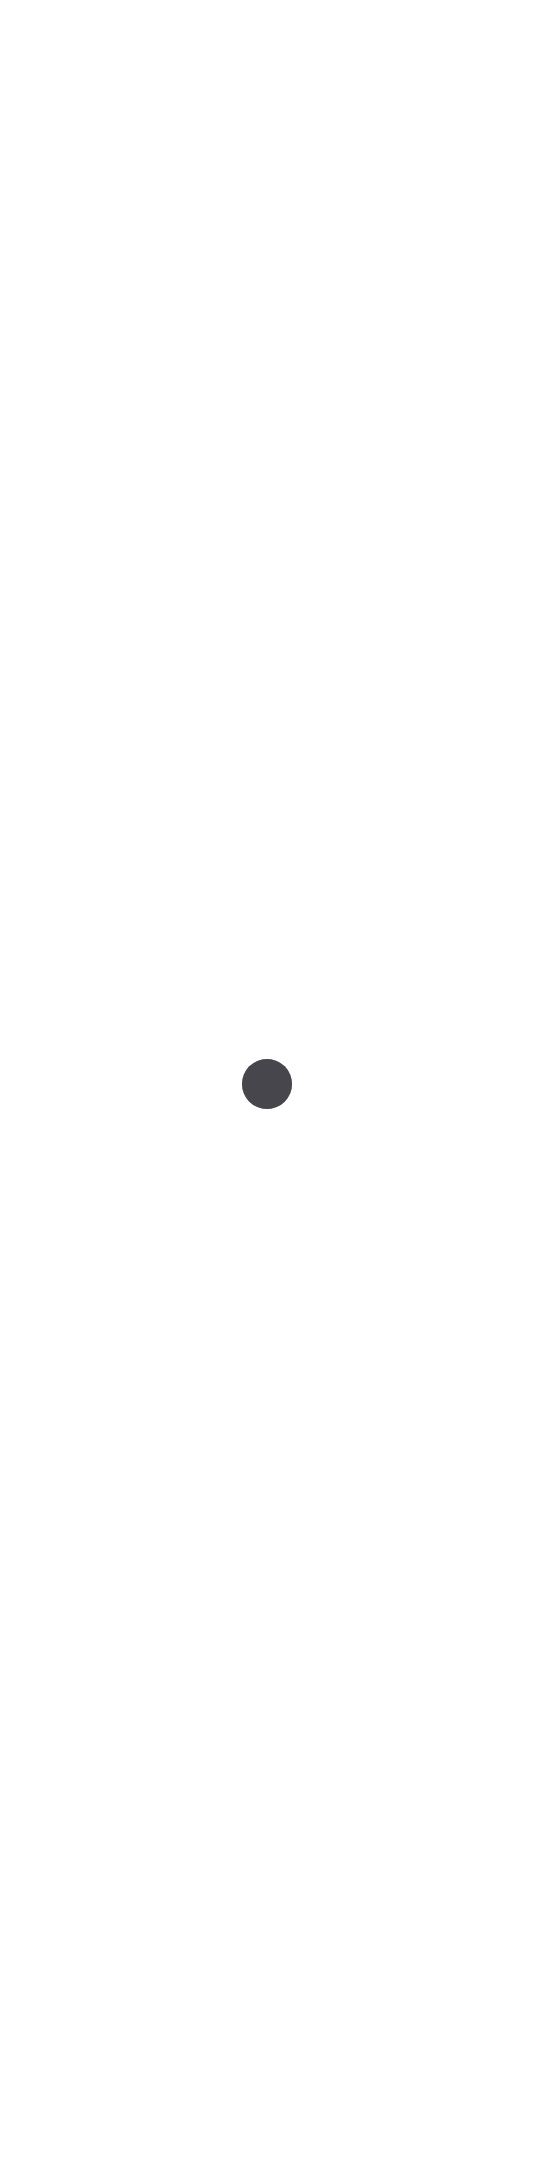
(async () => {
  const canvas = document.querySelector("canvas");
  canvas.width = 533;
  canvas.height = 2168;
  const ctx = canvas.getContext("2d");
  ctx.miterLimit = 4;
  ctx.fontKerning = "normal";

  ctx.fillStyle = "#ffffff";
  ctx.fillRect(0, 0, 533, 2168);
  ctx.fillStyle = "#65656a";
  ctx.beginPath();
  ctx.arc(267, 1084, 25, 0, Math.PI * 2);
  ctx.fill();
  ctx.fillStyle = "rgba(63, 62, 69, 0.8)";
  ctx.beginPath();
  ctx.arc(267, 1084, 25, 0, Math.PI * 2);
  ctx.fill();
})();
